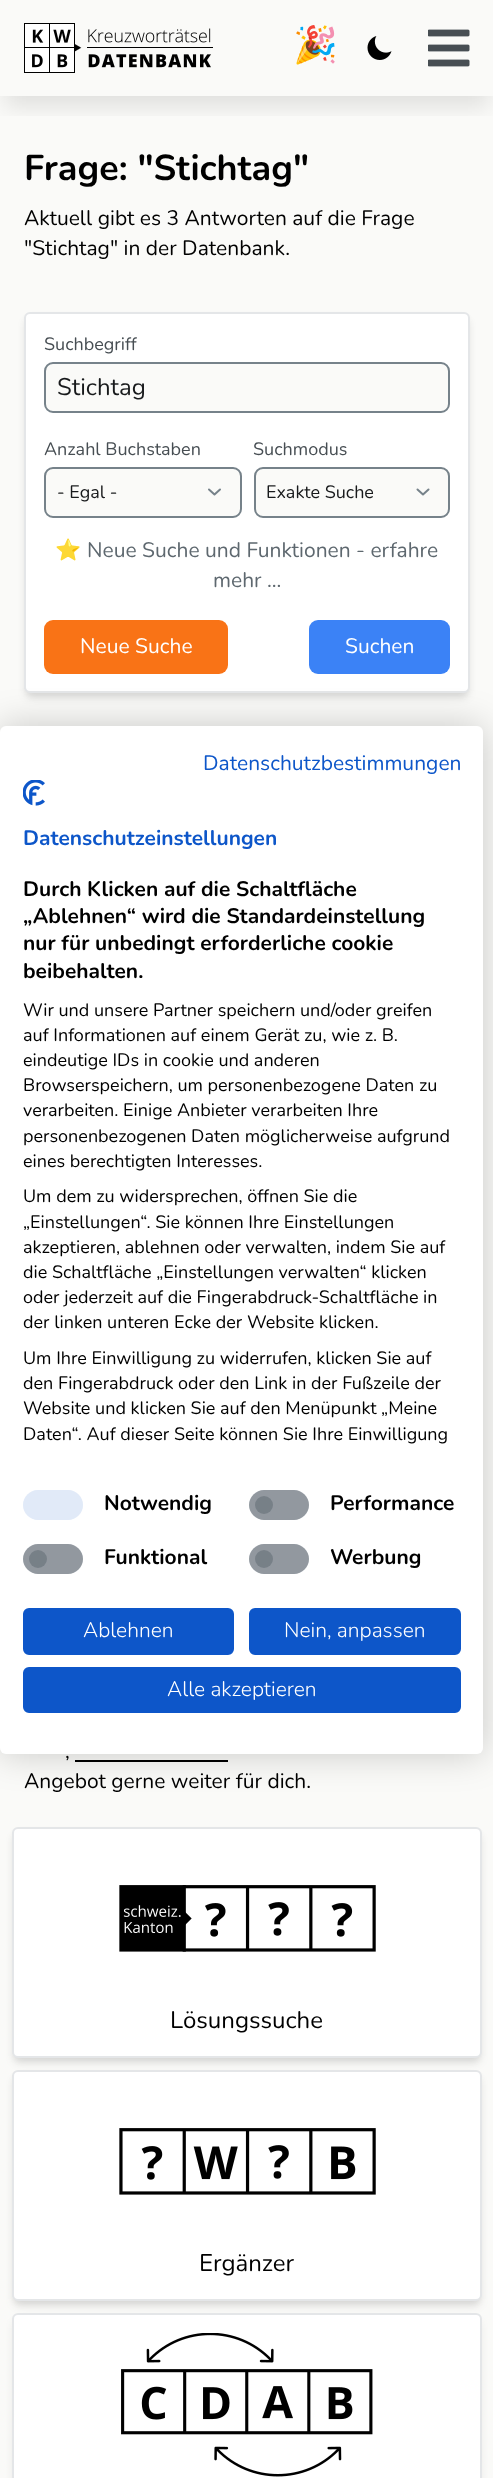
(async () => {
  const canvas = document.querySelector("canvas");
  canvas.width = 493;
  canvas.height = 2478;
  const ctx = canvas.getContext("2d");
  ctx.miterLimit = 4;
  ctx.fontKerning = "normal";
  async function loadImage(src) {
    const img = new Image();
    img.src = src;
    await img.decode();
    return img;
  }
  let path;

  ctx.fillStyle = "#fafaf8";
  ctx.fillRect(0, 0, 493, 2478);
  ctx.save();
  ctx.beginPath();
  ctx.rect(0, 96, 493, 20);
  ctx.clip();
  ctx.fillStyle = "rgba(0, 0, 0, 0.1)";
  ctx.filter = "blur(11px)";
  ctx.beginPath();
  ctx.rect(5, 20, 484, 87);
  ctx.fill();
  ctx.filter = "none";
  ctx.restore();
  ctx.drawImage(await loadImage("img/1.png"), 24, 23, 189, 50);
  ctx.drawImage(await loadImage("img/2.png"), 367, 36, 25, 24);
  ctx.drawImage(await loadImage("img/3.png"), 428, 29, 42, 38);
  ctx.fillStyle = "rgba(0, 0, 0, 0.06)";
  ctx.filter = "blur(3px)";
  ctx.beginPath();
  ctx.roundRect(26, 317, 442, 378, 5);
  ctx.fill();
  ctx.filter = "none";
  ctx.fillStyle = "rgba(0, 0, 0, 0.1)";
  ctx.filter = "blur(4.5px)";
  ctx.beginPath();
  ctx.roundRect(26, 320, 442, 378, 5);
  ctx.fill();
  ctx.filter = "none";
  ctx.fillStyle = "#ffffff";
  ctx.beginPath();
  ctx.roundRect(25, 313, 444, 379, 5);
  ctx.fill();
  ctx.strokeStyle = "#e4e6e8";
  ctx.lineWidth = 2;
  ctx.stroke();
  ctx.fillStyle = "#fafaf8";
  ctx.beginPath();
  ctx.roundRect(45, 363, 404, 49, 8);
  ctx.fill();
  ctx.strokeStyle = "#76828a";
  ctx.stroke();
  ctx.beginPath();
  ctx.roundRect(44, 467, 198, 51, 9);
  ctx.fill();
  path = new Path2D("M209 489.5L214.5 494.5L220 489.5");
  ctx.lineCap = "round";
  ctx.lineJoin = "round";
  ctx.stroke(path);
  ctx.beginPath();
  ctx.roundRect(45, 468, 196, 49, 8);
  ctx.lineJoin = "miter";
  ctx.stroke();
  ctx.beginPath();
  ctx.roundRect(254, 467, 196, 51, 9);
  ctx.fill();
  path = new Path2D("M417.5 489.5L423 494.5L428.5 489.5");
  ctx.lineJoin = "round";
  ctx.stroke(path);
  ctx.beginPath();
  ctx.roundRect(255, 468, 194, 49, 8);
  ctx.lineJoin = "miter";
  ctx.stroke();
  ctx.fillStyle = "#f97316";
  ctx.beginPath();
  ctx.roundRect(44, 620, 184, 54, 9);
  ctx.fill();
  ctx.fillStyle = "#3b82f6";
  ctx.beginPath();
  ctx.roundRect(309, 620, 141, 54, 9);
  ctx.fill();
  ctx.fillStyle = "#000000";
  ctx.fillRect(75, 1760, 153, 2);
  ctx.fillStyle = "rgba(0, 0, 0, 0.06)";
  ctx.filter = "blur(3px)";
  ctx.beginPath();
  ctx.roundRect(14, 1832, 466, 228, 5);
  ctx.fill();
  ctx.filter = "none";
  ctx.fillStyle = "rgba(0, 0, 0, 0.1)";
  ctx.filter = "blur(4.5px)";
  ctx.beginPath();
  ctx.roundRect(14, 1835, 466, 228, 5);
  ctx.fill();
  ctx.filter = "none";
  ctx.fillStyle = "#ffffff";
  ctx.beginPath();
  ctx.roundRect(13, 1828, 468, 229, 5);
  ctx.fill();
  ctx.strokeStyle = "#e4e6e8";
  ctx.stroke();
  ctx.drawImage(await loadImage("img/4.png"), 119, 1885, 257, 67);
  ctx.fillStyle = "rgba(0, 0, 0, 0.06)";
  ctx.filter = "blur(3px)";
  ctx.beginPath();
  ctx.roundRect(14, 2075, 466, 228, 5);
  ctx.fill();
  ctx.filter = "none";
  ctx.fillStyle = "rgba(0, 0, 0, 0.1)";
  ctx.filter = "blur(4.5px)";
  ctx.beginPath();
  ctx.roundRect(14, 2078, 466, 228, 5);
  ctx.fill();
  ctx.filter = "none";
  ctx.fillStyle = "#ffffff";
  ctx.beginPath();
  ctx.roundRect(13, 2071, 468, 229, 5);
  ctx.fill();
  ctx.stroke();
  ctx.drawImage(await loadImage("img/5.png"), 119, 2128, 257, 67);
  ctx.fillStyle = "rgba(0, 0, 0, 0.1)";
  ctx.filter = "blur(4.5px)";
  ctx.beginPath();
  ctx.roundRect(14, 2321, 466, 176, 5);
  ctx.fill();
  ctx.filter = "none";
  ctx.fillStyle = "#ffffff";
  ctx.beginPath();
  ctx.roundRect(13, 2314, 468, 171, 5);
  ctx.fill();
  ctx.stroke();
  ctx.drawImage(await loadImage("img/6.png"), 121, 2333, 252, 144);
  ctx.fillStyle = "rgba(0, 0, 0, 0.2)";
  ctx.filter = "blur(18px)";
  ctx.beginPath();
  ctx.roundRect(0, 726, 483, 1028, 6);
  ctx.fill();
  ctx.filter = "none";
  ctx.fillStyle = "#ffffff";
  ctx.beginPath();
  ctx.roundRect(0, 726, 483, 1028, 6);
  ctx.fill();
  ctx.drawImage(await loadImage("img/7.png"), 23, 780, 22, 26);
  ctx.fillStyle = "#f3f7fc";
  ctx.beginPath();
  ctx.roundRect(23, 1490, 60, 30, 15);
  ctx.fill();
  ctx.fillStyle = "#e1eaf8";
  path = new Path2D("M38 1490H68C76 1490 83 1497 83 1505C83 1513 76 1520 68 1520H38C30 1520 23 1513 23 1505C23 1497 30 1490 38 1490Z");
  ctx.fill(path);
  ctx.fillStyle = "#e9ecef";
  ctx.beginPath();
  ctx.roundRect(249, 1490, 60, 30, 15);
  ctx.fill();
  ctx.fillStyle = "#92999f";
  ctx.beginPath();
  ctx.arc(264, 1505, 9, 0, Math.PI * 2);
  ctx.fill();
  ctx.fillStyle = "rgba(108, 117, 125, 0.7)";
  path = new Path2D("M264 1490H294C302 1490 309 1497 309 1505C309 1513 302 1520 294 1520H264C256 1520 249 1513 249 1505C249 1497 256 1490 264 1490Z");
  ctx.fill(path);
  ctx.fillStyle = "#e9ecef";
  ctx.beginPath();
  ctx.roundRect(23, 1544, 60, 30, 15);
  ctx.fill();
  ctx.fillStyle = "#92999f";
  ctx.beginPath();
  ctx.arc(38, 1559, 9, 0, Math.PI * 2);
  ctx.fill();
  ctx.fillStyle = "rgba(108, 117, 125, 0.7)";
  path = new Path2D("M38 1544H68C76 1544 83 1551 83 1559C83 1567 76 1574 68 1574H38C30 1574 23 1567 23 1559C23 1551 30 1544 38 1544Z");
  ctx.fill(path);
  ctx.fillStyle = "#e9ecef";
  ctx.beginPath();
  ctx.roundRect(249, 1544, 60, 30, 15);
  ctx.fill();
  ctx.fillStyle = "#92999f";
  ctx.beginPath();
  ctx.arc(264, 1559, 9, 0, Math.PI * 2);
  ctx.fill();
  ctx.fillStyle = "rgba(108, 117, 125, 0.7)";
  path = new Path2D("M264 1544H294C302 1544 309 1551 309 1559C309 1567 302 1574 294 1574H264C256 1574 249 1567 249 1559C249 1551 256 1544 264 1544Z");
  ctx.fill(path);
  ctx.fillStyle = "#0d56c9";
  ctx.beginPath();
  ctx.roundRect(24, 1609, 209, 45, 5);
  ctx.fill();
  ctx.strokeStyle = "#0d56c9";
  ctx.stroke();
  ctx.beginPath();
  ctx.roundRect(250, 1609, 210, 45, 5);
  ctx.fill();
  ctx.stroke();
  ctx.beginPath();
  ctx.roundRect(24, 1668, 436, 44, 5);
  ctx.fill();
  ctx.stroke();
  ctx.font = "36px Noto Color Emoji";
  ctx.fillStyle = "#000000";
  ctx.fillText("🎉", 293, 57);
  ctx.font = "bold 36px Nunito";
  ctx.fillText("Frage: \"Stichtag\"", 24, 180);
  ctx.font = "21px Nunito";
  ctx.fillText("Aktuell gibt es 3 Antworten auf die Frage", 24, 225);
  ctx.fillText("\"Stichtag\" in der Datenbank.", 24, 255);
  ctx.font = "18px Nunito";
  ctx.fillStyle = "#474e53";
  ctx.fillText("Suchbegriff", 44, 350);
  ctx.font = "24px Nunito";
  ctx.fillStyle = "#181a1c";
  ctx.fillText("Stichtag", 57, 395);
  ctx.font = "18px Nunito";
  ctx.fillStyle = "#474e53";
  ctx.fillText("Anzahl Buchstaben", 44, 455);
  ctx.fillStyle = "#181a1c";
  ctx.fillText("- Egal -", 57, 498);
  ctx.fillStyle = "#474e53";
  ctx.fillText("Suchmodus", 253, 455);
  ctx.fillStyle = "#181a1c";
  ctx.fillText("Exakte Suche", 266, 498);
  ctx.font = "21px Noto Color Emoji";
  ctx.fillStyle = "#5e686f";
  ctx.fillText("⭐", 55, 557);
  ctx.font = "21px Nunito";
  ctx.fillText("Neue Suche und Funktionen - erfahre", 87, 557);
  ctx.fillText("mehr ...", 213, 587);
  ctx.fillStyle = "#ffffff";
  ctx.fillText("Neue Suche", 80, 653);
  ctx.fillText("Suchen", 345, 653);
  ctx.fillStyle = "#000000";
  ctx.fillText(",", 65, 1758);
  ctx.fillText("Angebot gerne weiter für dich.", 24, 1788);
  ctx.font = "24px Nunito";
  ctx.fillText("Lösungssuche", 170, 2028);
  ctx.fillText("Ergänzer", 199, 2271);
  ctx.font = "21px Nunito";
  ctx.fillStyle = "#0d56c9";
  ctx.fillText("Datenschutzbestimmungen", 203, 770);
  ctx.font = "bold 21px Nunito";
  ctx.fillText("Datenschutzeinstellungen", 23, 845);
  ctx.fillStyle = "#000000";
  for (const [text, x, y] of [
    ["Durch Klicken auf die Schaltfläche", 23, 896],
    ["„Ablehnen“ wird die Standardeinstellung", 23, 923],
    ["nur für unbedingt erforderliche cookie", 23, 950],
    ["beibehalten.", 23, 978],
  ]) {
    ctx.fillText(text, x, y);
  }
  ctx.font = "18px Nunito";
  for (const [text, x, y] of [
    ["Wir und unsere Partner speichern und/oder greifen", 23, 1016],
    ["auf Informationen auf einem Gerät zu, wie z. B.", 23, 1041],
    ["eindeutige IDs in cookie und anderen", 23, 1066],
    ["Browserspeichern, um personenbezogene Daten zu", 23, 1091],
    ["verarbeiten. Einige Anbieter verarbeiten Ihre", 23, 1116],
    ["personenbezogenen Daten möglicherweise aufgrund", 23, 1142],
    ["eines berechtigten Interesses.", 23, 1167],
    ["Um dem zu widersprechen, öffnen Sie die", 23, 1202],
    ["„Einstellungen“. Sie können Ihre Einstellungen", 23, 1228],
    ["akzeptieren, ablehnen oder verwalten, indem Sie auf", 23, 1253],
    ["die Schaltfläche „Einstellungen verwalten“ klicken", 23, 1278],
    ["oder jederzeit auf die Fingerabdruck-Schaltfläche in", 23, 1303],
    ["der linken unteren Ecke der Website klicken.", 23, 1328],
    ["Um Ihre Einwilligung zu widerrufen, klicken Sie auf", 23, 1364],
    ["den Fingerabdruck oder den Link in der Fußzeile der", 23, 1389],
    ["Website und klicken Sie auf den Menüpunkt „Meine", 23, 1414],
    ["Daten“. Auf dieser Seite können Sie Ihre Einwilligung", 23, 1440],
  ]) {
    ctx.fillText(text, x, y);
  }
  ctx.font = "bold 21px Nunito";
  for (const [text, x, y] of [
    ["Notwendig", 104, 1510],
    ["Performance", 330, 1510],
    ["Funktional", 104, 1564],
    ["Werbung", 330, 1564],
  ]) {
    ctx.fillText(text, x, y);
  }
  ctx.font = "300 21px Nunito";
  ctx.fillStyle = "#ffffff";
  for (const [text, x, y] of [
    ["Ablehnen", 83, 1637],
    ["Nein, anpassen", 284, 1637],
    ["Alle akzeptieren", 167, 1696],
  ]) {
    ctx.fillText(text, x, y);
  }
})();
